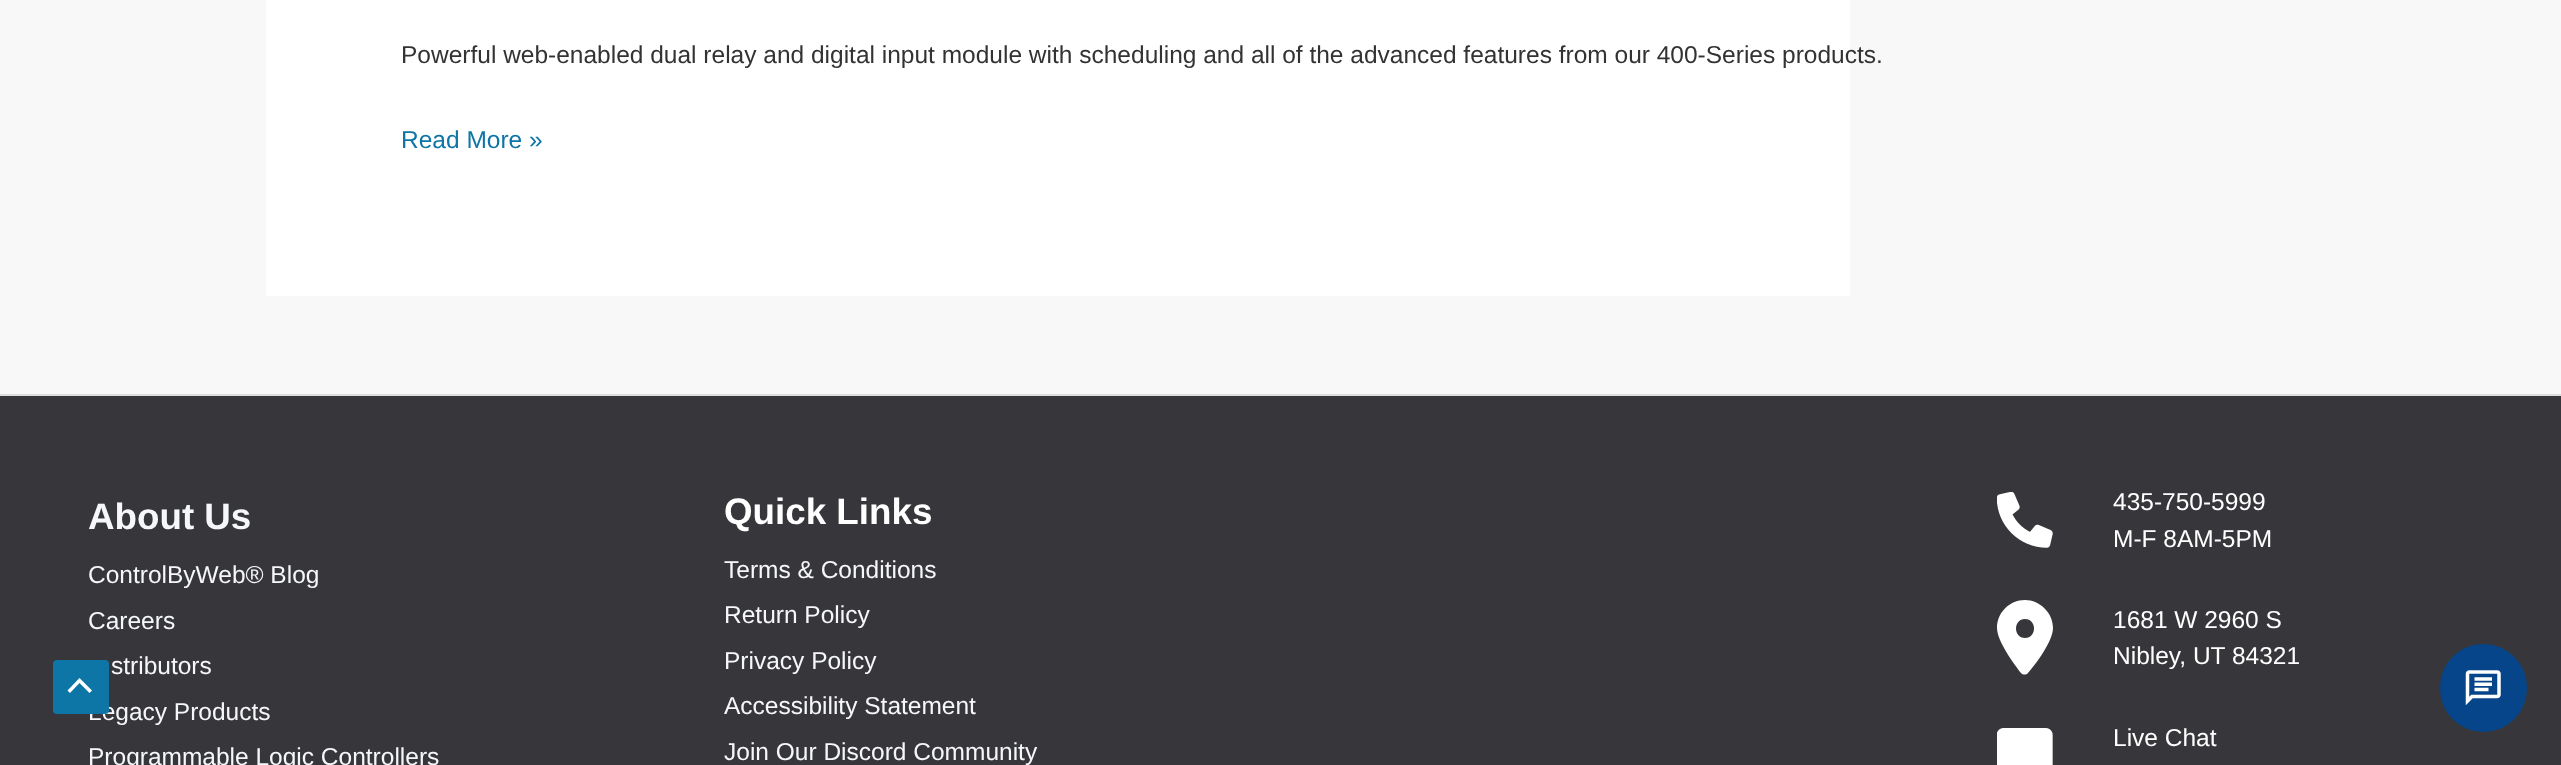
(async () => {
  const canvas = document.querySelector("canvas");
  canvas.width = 2561;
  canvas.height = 765;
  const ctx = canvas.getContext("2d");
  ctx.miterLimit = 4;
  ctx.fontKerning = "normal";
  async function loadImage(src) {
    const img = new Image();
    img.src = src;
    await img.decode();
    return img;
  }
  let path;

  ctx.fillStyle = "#f8f8f9";
  ctx.fillRect(0, 0, 2561, 765);
  for (const [x, y, w, h, color] of [
    [266, 0, 1584, 296, "#ffffff"],
    [0, 396, 2561, 369, "#37373b"],
    [0, 394, 2561, 2, "#dddddd"],
  ]) {
    ctx.fillStyle = color;
    ctx.fillRect(x, y, w, h);
  }
  ctx.drawImage(await loadImage("img/1.png"), 1997, 492, 56, 56);
  ctx.fillStyle = "#ffffff";
  path = new Path2D("M2021 673C2014 664 1997 641 1997 628C1997 613 2009 600 2025 600C2040 600 2053 613 2053 628C2053 641 2036 664 2028 673C2026 675 2023 675 2021 673ZM2025 638C2037 638 2037 619 2025 619C2013 619 2013 638 2025 638Z");
  ctx.fill(path);
  ctx.drawImage(await loadImage("img/2.png"), 1997, 728, 56, 37);
  ctx.fillStyle = "#064589";
  ctx.beginPath();
  ctx.roundRect(2440, 644, 87, 88, 43.5);
  ctx.fill();
  ctx.drawImage(await loadImage("img/3.png"), 2465, 670, 36, 36);
  ctx.font = "24.5px Liberation Sans";
  ctx.fillStyle = "#333333";
  ctx.fillText("Powerful web-enabled dual relay and digital input module with scheduling and all of the advanced features from our 400-Series products.", 401, 63);
  ctx.fillStyle = "#0e76a6";
  ctx.fillText("Read More »", 401, 148);
  ctx.font = "bold 36.75px Liberation Sans";
  ctx.fillStyle = "#f5f7f9";
  ctx.fillText("About Us", 88, 529);
  ctx.font = "24.5px Liberation Sans";
  for (const [text, x, y] of [
    ["ControlByWeb® Blog", 88, 583],
    ["Careers", 88, 629],
    ["stributors", 111, 674],
    ["Legacy Products", 88, 720],
  ]) {
    ctx.fillText(text, x, y);
  }
  ctx.fillStyle = "#0e76a6";
  ctx.beginPath();
  ctx.roundRect(53, 660, 56, 54, 4);
  ctx.fill();
  ctx.fillStyle = "#ffffff";
  path = new Path2D("M92 690.5L79.5 678L67.5 690.5L70 693L79.5 683L89.5 693Z");
  ctx.fill(path);
  ctx.fillStyle = "#f5f7f9";
  ctx.fillText("Programmable Logic Controllers", 88, 765);
  ctx.font = "bold 36.75px Liberation Sans";
  ctx.fillStyle = "#ffffff";
  ctx.fillText("Quick Links", 724, 524);
  ctx.font = "24.5px Liberation Sans";
  ctx.fillStyle = "#f5f7f9";
  for (const [text, x, y] of [
    ["Terms & Conditions", 724, 578],
    ["Return Policy", 724, 623],
    ["Privacy Policy", 724, 669],
    ["Accessibility Statement", 724, 714],
    ["Join Our Discord Community", 724, 760],
  ]) {
    ctx.fillText(text, x, y);
  }
  ctx.fillStyle = "#ffffff";
  for (const [text, x, y] of [
    ["435-750-5999", 2113, 510],
    ["M-F 8AM-5PM", 2113, 547],
    ["1681 W 2960 S", 2113, 628],
    ["Nibley, UT 84321", 2113, 664],
    ["Live Chat", 2113, 746],
  ]) {
    ctx.fillText(text, x, y);
  }
})();
